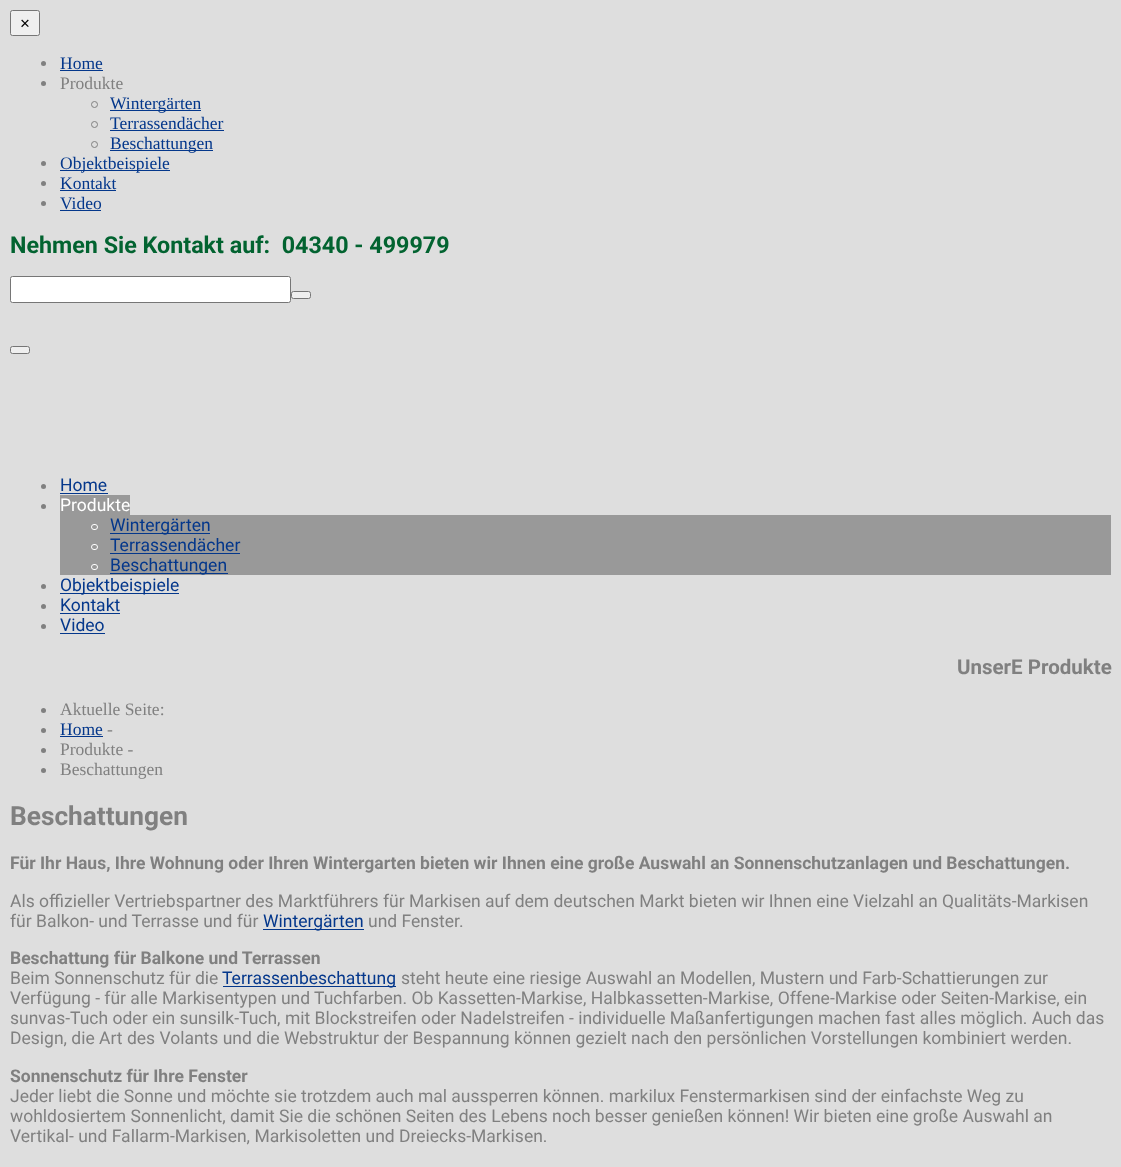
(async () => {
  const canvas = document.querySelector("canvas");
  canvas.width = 1121;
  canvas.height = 1167;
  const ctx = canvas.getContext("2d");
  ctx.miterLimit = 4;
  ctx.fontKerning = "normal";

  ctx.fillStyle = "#dedede";
  ctx.fillRect(0, 0, 1121, 1167);
  ctx.fillStyle = "#efefef";
  ctx.beginPath();
  ctx.roundRect(10.5, 10.5, 29, 25, 2);
  ctx.fill();
  ctx.strokeStyle = "#767676";
  ctx.stroke();
  ctx.fillStyle = "#808080";
  ctx.beginPath();
  ctx.arc(43.5, 63.5, 2.5, 0, Math.PI * 2);
  ctx.fill();
  ctx.fillStyle = "#04378b";
  ctx.fillRect(60, 70, 43, 1);
  ctx.fillStyle = "#808080";
  ctx.beginPath();
  ctx.arc(43.5, 83.5, 2.5, 0, Math.PI * 2);
  ctx.fill();
  ctx.beginPath();
  ctx.arc(94.5, 104.5, 3, 0, Math.PI * 2);
  ctx.strokeStyle = "#808080";
  ctx.stroke();
  ctx.fillStyle = "#04378b";
  ctx.fillRect(110, 110, 91, 1);
  ctx.beginPath();
  ctx.arc(94.5, 124.5, 3, 0, Math.PI * 2);
  ctx.stroke();
  ctx.fillRect(110, 130, 114, 1);
  ctx.beginPath();
  ctx.arc(94.5, 144.5, 3, 0, Math.PI * 2);
  ctx.stroke();
  ctx.fillRect(110, 150, 103, 1);
  ctx.fillStyle = "#808080";
  ctx.beginPath();
  ctx.arc(43.5, 163.5, 2.5, 0, Math.PI * 2);
  ctx.fill();
  ctx.fillStyle = "#04378b";
  ctx.fillRect(60, 170, 110, 1);
  ctx.fillStyle = "#808080";
  ctx.beginPath();
  ctx.arc(43.5, 183.5, 2.5, 0, Math.PI * 2);
  ctx.fill();
  ctx.fillStyle = "#04378b";
  ctx.fillRect(60, 190, 56, 1);
  ctx.fillStyle = "#808080";
  ctx.beginPath();
  ctx.arc(43.5, 203.5, 2.5, 0, Math.PI * 2);
  ctx.fill();
  ctx.fillStyle = "#04378b";
  ctx.fillRect(60, 210, 41, 1);
  ctx.fillStyle = "#ffffff";
  ctx.beginPath();
  ctx.roundRect(10.5, 276.5, 280, 26, 2);
  ctx.fill();
  ctx.strokeStyle = "#767676";
  ctx.stroke();
  ctx.fillStyle = "#efefef";
  ctx.beginPath();
  ctx.roundRect(291.5, 291.5, 19, 7, 2);
  ctx.fill();
  ctx.stroke();
  ctx.beginPath();
  ctx.roundRect(10.5, 346.5, 19, 7, 2);
  ctx.fill();
  ctx.stroke();
  ctx.fillStyle = "#808080";
  ctx.beginPath();
  ctx.arc(43.5, 486.5, 2.5, 0, Math.PI * 2);
  ctx.fill();
  ctx.fillStyle = "#04378b";
  ctx.fillRect(60, 493, 48, 1);
  ctx.fillStyle = "#808080";
  ctx.beginPath();
  ctx.arc(43.5, 506.5, 2.5, 0, Math.PI * 2);
  ctx.fill();
  ctx.fillStyle = "#999999";
  ctx.fillRect(60, 495, 70, 20);
  ctx.fillRect(60, 515, 1051, 60);
  ctx.beginPath();
  ctx.roundRect(91.5, 524.5, 6, 5, 2.5);
  ctx.strokeStyle = "#ffffff";
  ctx.stroke();
  ctx.fillStyle = "#04378b";
  ctx.fillRect(110, 533, 100, 1);
  ctx.beginPath();
  ctx.roundRect(91.5, 544.5, 6, 5, 2.5);
  ctx.stroke();
  ctx.fillRect(110, 553, 130, 1);
  ctx.beginPath();
  ctx.roundRect(91.5, 564.5, 6, 5, 2.5);
  ctx.stroke();
  ctx.fillRect(110, 573, 118, 1);
  ctx.fillStyle = "#808080";
  ctx.beginPath();
  ctx.arc(43.5, 586.5, 2.5, 0, Math.PI * 2);
  ctx.fill();
  ctx.fillStyle = "#04378b";
  ctx.fillRect(60, 593, 119, 1);
  ctx.fillStyle = "#808080";
  ctx.beginPath();
  ctx.arc(43.5, 606.5, 2.5, 0, Math.PI * 2);
  ctx.fill();
  ctx.fillStyle = "#04378b";
  ctx.fillRect(60, 613, 60, 1);
  ctx.fillStyle = "#808080";
  ctx.beginPath();
  ctx.arc(43.5, 626.5, 2.5, 0, Math.PI * 2);
  ctx.fill();
  ctx.fillStyle = "#04378b";
  ctx.fillRect(60, 633, 45, 1);
  ctx.fillStyle = "#808080";
  ctx.beginPath();
  ctx.arc(43.5, 710.5, 2.5, 0, Math.PI * 2);
  ctx.fill();
  ctx.beginPath();
  ctx.arc(43.5, 730.5, 2.5, 0, Math.PI * 2);
  ctx.fill();
  ctx.fillStyle = "#04378b";
  ctx.fillRect(60, 736, 43, 1);
  ctx.fillStyle = "#808080";
  ctx.beginPath();
  ctx.arc(43.5, 750.5, 2.5, 0, Math.PI * 2);
  ctx.fill();
  ctx.beginPath();
  ctx.arc(43.5, 770.5, 2.5, 0, Math.PI * 2);
  ctx.fill();
  ctx.fillStyle = "#04378b";
  ctx.fillRect(263, 929, 101, 1);
  ctx.fillRect(223, 986, 173, 1);
  ctx.font = "17px Liberation Sans";
  ctx.fillStyle = "#000000";
  ctx.fillText("×", 20, 29);
  ctx.font = "17.5px Liberation Serif";
  ctx.fillStyle = "#04378b";
  ctx.fillText("Home", 60, 69);
  ctx.fillStyle = "#808080";
  ctx.fillText("Produkte", 60, 89);
  ctx.fillStyle = "#04378b";
  for (const [text, x, y] of [
    ["Wintergärten", 110, 109],
    ["Terrassendächer", 110, 129],
    ["Beschattungen", 110, 149],
    ["Objektbeispiele", 60, 169],
    ["Kontakt", 60, 189],
    ["Video", 60, 209],
  ]) {
    ctx.fillText(text, x, y);
  }
  ctx.font = "bold 23.3px Roboto";
  ctx.fillStyle = "#026330";
  ctx.fillText("Nehmen Sie Kontakt auf:  04340 - 499979", 10, 253);
  ctx.font = "17.5px Roboto";
  ctx.fillStyle = "#04378b";
  ctx.fillText("Home", 60, 491);
  ctx.fillStyle = "#ffffff";
  ctx.fillText("Produkte", 60, 511);
  ctx.fillStyle = "#04378b";
  for (const [text, x, y] of [
    ["Wintergärten", 110, 531],
    ["Terrassendächer", 110, 551],
    ["Beschattungen", 110, 571],
    ["Objektbeispiele", 60, 591],
    ["Kontakt", 60, 611],
    ["Video", 60, 631],
  ]) {
    ctx.fillText(text, x, y);
  }
  ctx.font = "bold 20.5px Roboto";
  ctx.fillStyle = "#808080";
  ctx.fillText("UnserE Produkte", 957, 674);
  ctx.font = "17.5px Liberation Serif";
  ctx.fillText("Aktuelle Seite:", 60, 715);
  ctx.fillStyle = "#04378b";
  ctx.fillText("Home", 60, 735);
  ctx.fillStyle = "#808080";
  for (const [text, x, y] of [
    ["-", 107, 735],
    ["Produkte -", 60, 755],
    ["Beschattungen", 60, 775],
  ]) {
    ctx.fillText(text, x, y);
  }
  ctx.font = "bold 26.25px Roboto";
  ctx.fillText("Beschattungen", 10, 825);
  ctx.font = "bold 17.5px Roboto";
  ctx.fillText("Für Ihr Haus, Ihre Wohnung oder Ihren Wintergarten bieten wir Ihnen eine große Auswahl an Sonnenschutzanlagen und Beschattungen.", 10, 869);
  ctx.font = "17.5px Roboto";
  ctx.fillText("Als offizieller Vertriebspartner des Marktführers für Markisen auf dem deutschen Markt bieten wir Ihnen eine Vielzahl an Qualitäts-Markisen", 10, 907);
  ctx.fillText("für Balkon- und Terrasse und für", 10, 927);
  ctx.fillStyle = "#04378b";
  ctx.fillText("Wintergärten", 263, 927);
  ctx.fillStyle = "#808080";
  ctx.fillText("und Fenster.", 368, 927);
  ctx.font = "bold 17.5px Roboto";
  ctx.fillText("Beschattung für Balkone und Terrassen", 10, 964);
  ctx.font = "17.5px Roboto";
  ctx.fillText("Beim Sonnenschutz für die", 10, 984);
  ctx.fillStyle = "#04378b";
  ctx.fillText("Terrassenbeschattung", 222, 984);
  ctx.fillStyle = "#808080";
  for (const [text, x, y] of [
    ["steht heute eine riesige Auswahl an Modellen, Mustern und Farb-Schattierungen zur", 401, 984],
    ["Verfügung - für alle Markisentypen und Tuchfarben. Ob Kassetten-Markise, Halbkassetten-Markise, Offene-Markise oder Seiten-Markise, ein", 10, 1004],
    ["sunvas-Tuch oder ein sunsilk-Tuch, mit Blockstreifen oder Nadelstreifen - individuelle Maßanfertigungen machen fast alles möglich. Auch das", 10, 1024],
    ["Design, die Art des Volants und die Webstruktur der Bespannung können gezielt nach den persönlichen Vorstellungen kombiniert werden.", 10, 1044],
  ]) {
    ctx.fillText(text, x, y);
  }
  ctx.font = "bold 17.5px Roboto";
  ctx.fillText("Sonnenschutz für Ihre Fenster", 10, 1082);
  ctx.font = "17.5px Roboto";
  for (const [text, x, y] of [
    ["Jeder liebt die Sonne und möchte sie trotzdem auch mal aussperren können. markilux Fenstermarkisen sind der einfachste Weg zu", 10, 1102],
    ["wohldosiertem Sonnenlicht, damit Sie die schönen Seiten des Lebens noch besser genießen können! Wir bieten eine große Auswahl an", 10, 1122],
    ["Vertikal- und Fallarm-Markisen, Markisoletten und Dreiecks-Markisen.", 10, 1142],
  ]) {
    ctx.fillText(text, x, y);
  }
})();
